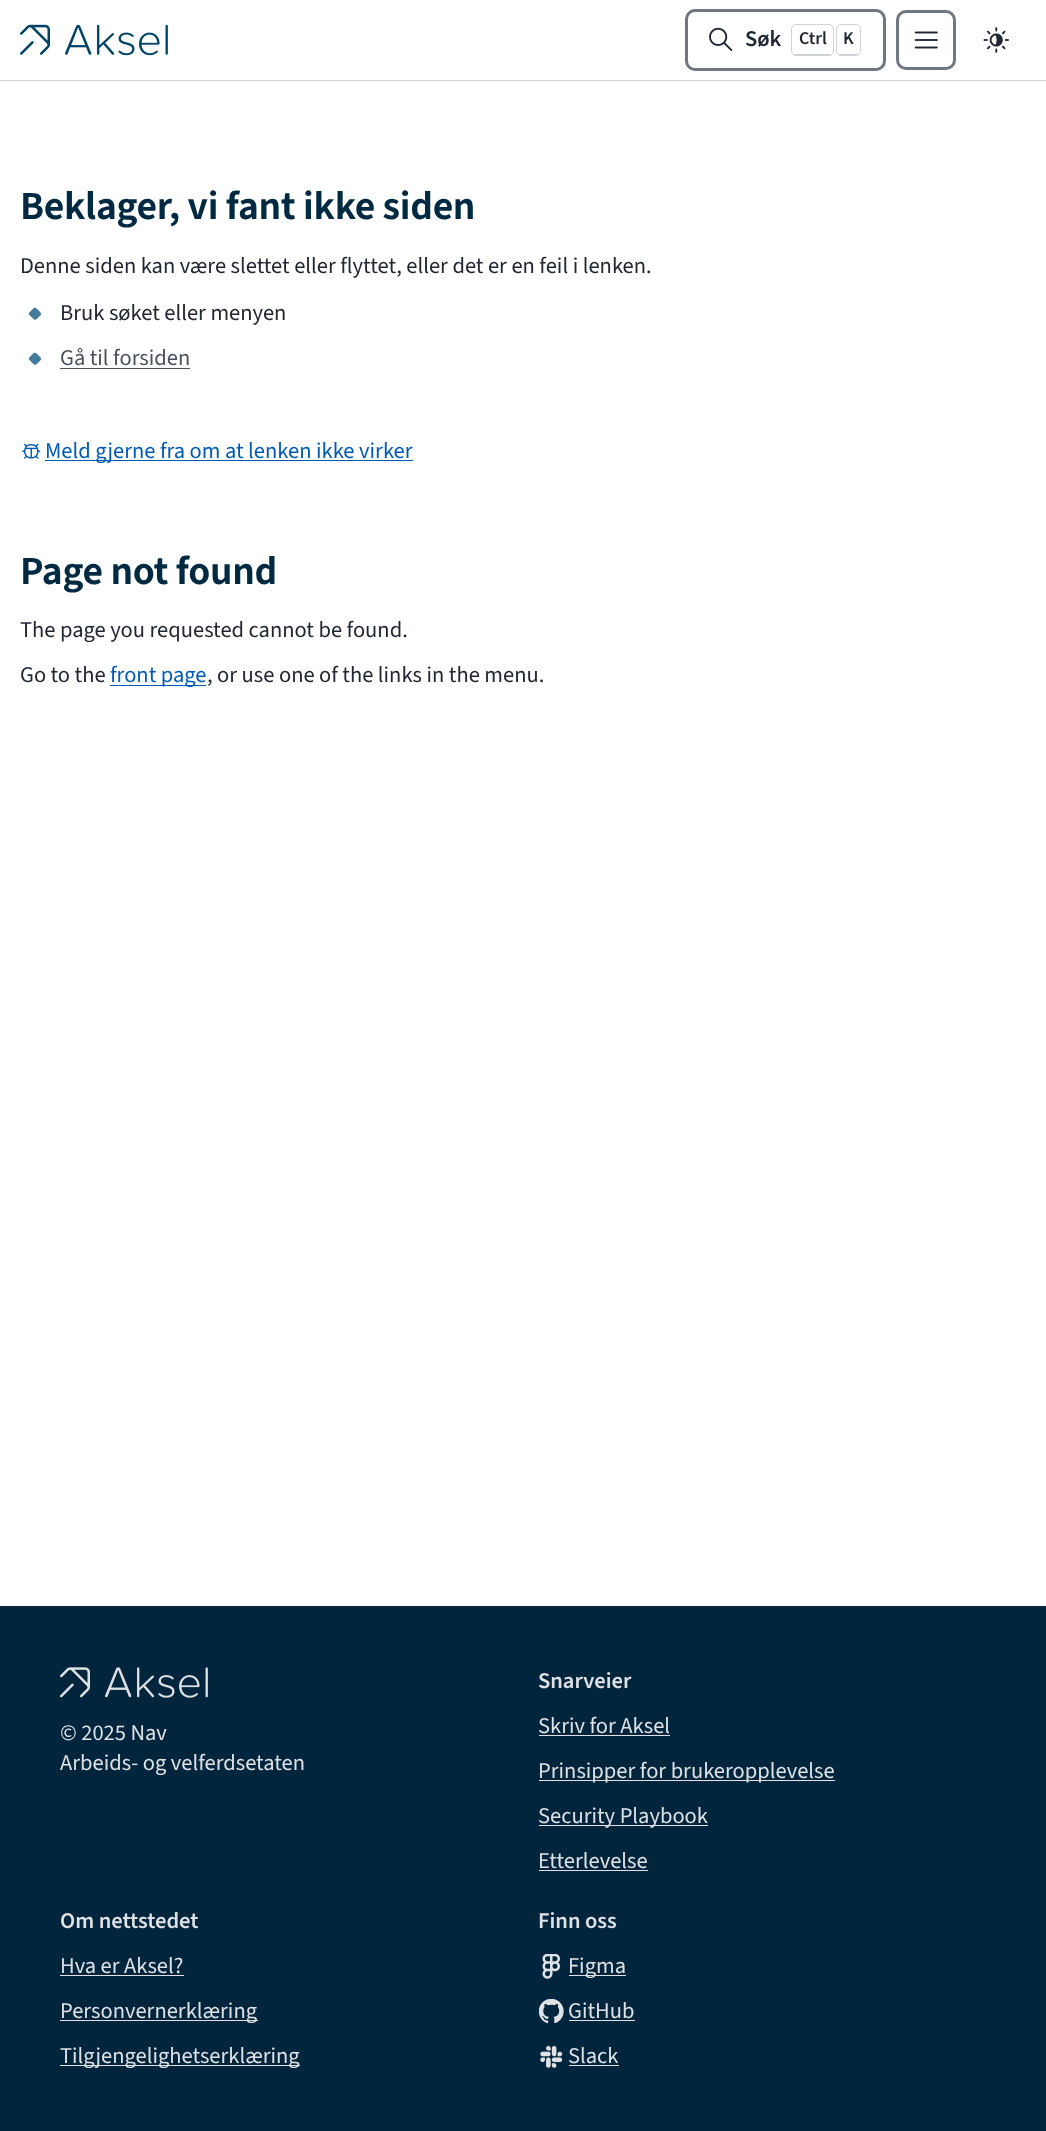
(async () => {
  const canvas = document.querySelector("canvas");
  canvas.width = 1046;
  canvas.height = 2131;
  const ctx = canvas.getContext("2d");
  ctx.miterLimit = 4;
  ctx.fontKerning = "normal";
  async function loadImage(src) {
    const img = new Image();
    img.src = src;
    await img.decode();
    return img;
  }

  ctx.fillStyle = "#ffffff";
  ctx.fillRect(0, 0, 1046, 2131);
  ctx.fillStyle = "#cfd3d8";
  ctx.fillRect(0, 80, 1046, 1);
  ctx.drawImage(await loadImage("img/1.png"), 20, 24, 148, 32);
  ctx.beginPath();
  ctx.roundRect(686.5, 10.5, 198, 59, 8.5);
  ctx.strokeStyle = "#6f7785";
  ctx.lineWidth = 3;
  ctx.stroke();
  ctx.drawImage(await loadImage("img/2.png"), 709, 27, 24, 24);
  ctx.beginPath();
  ctx.roundRect(791.5, 24.5, 42, 31, 4.5);
  ctx.strokeStyle = "#cfd3d8";
  ctx.lineWidth = 1;
  ctx.stroke();
  ctx.fillRect(794, 54, 37, 1);
  ctx.beginPath();
  ctx.roundRect(836.5, 24.5, 24, 31, 4.5);
  ctx.stroke();
  ctx.fillRect(839, 54, 20, 1);
  ctx.beginPath();
  ctx.roundRect(897.5, 11.5, 57, 57, 8.5);
  ctx.strokeStyle = "#6f7785";
  ctx.lineWidth = 3;
  ctx.stroke();
  ctx.drawImage(await loadImage("img/3.png"), 914, 31, 24, 18);
  ctx.drawImage(await loadImage("img/4.png"), 983, 27, 26, 26);
  ctx.drawImage(await loadImage("img/5.png"), 29, 307, 12, 13);
  ctx.drawImage(await loadImage("img/5.png"), 29, 352, 12, 13);
  ctx.fillStyle = "#49515e";
  ctx.fillRect(60, 368, 130, 1);
  ctx.drawImage(await loadImage("img/6.png"), 22, 443, 19, 16);
  for (const [x, y, w, h, color] of [
    [45, 460, 368, 1, "#005bb6"],
    [110, 685, 96, 1, "#005bb6"],
    [0, 1606, 1046, 525, "#00253c"],
  ]) {
    ctx.fillStyle = color;
    ctx.fillRect(x, y, w, h);
  }
  ctx.drawImage(await loadImage("img/7.png"), 60, 1667, 148, 31);
  for (const [x, y, w, h, color] of [
    [539, 1735, 131, 1, "#dfe1e5"],
    [539, 1780, 296, 1, "#dfe1e5"],
    [539, 1825, 169, 1, "#dfe1e5"],
    [539, 1870, 109, 1, "#dfe1e5"],
    [60, 1975, 124, 1, "#dfe1e5"],
    [60, 2020, 198, 1, "#dfe1e5"],
    [60, 2065, 240, 1, "#dfe1e5"],
  ]) {
    ctx.fillStyle = color;
    ctx.fillRect(x, y, w, h);
  }
  ctx.drawImage(await loadImage("img/8.png"), 542, 1954, 18, 25);
  ctx.fillRect(569, 1975, 57, 1);
  ctx.drawImage(await loadImage("img/9.png"), 539, 1999, 25, 25);
  ctx.fillRect(569, 2020, 66, 1);
  ctx.drawImage(await loadImage("img/10.png"), 540, 2045, 23, 23);
  ctx.fillRect(569, 2065, 50, 1);
  ctx.font = "600 22.5px 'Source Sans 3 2'";
  ctx.fillStyle = "#202733";
  ctx.fillText("Søk", 745, 46);
  ctx.font = "600 18px 'Source Sans 3 2'";
  ctx.fillText("Ctrl", 799, 44);
  ctx.fillText("K", 843, 44);
  ctx.letterSpacing = "-0.3px";
  ctx.font = "600 40px 'Source Sans 3'";
  ctx.fillStyle = "#002942";
  ctx.fillText("Beklager, vi fant ikke siden", 20, 219);
  ctx.letterSpacing = "0px";
  ctx.font = "22.5px 'Source Sans 3'";
  ctx.fillStyle = "#202733";
  ctx.fillText("Denne siden kan være slettet eller flyttet, eller det er en feil i lenken.", 20, 273);
  ctx.fillText("Bruk søket eller menyen", 60, 320);
  ctx.fillStyle = "#49515e";
  ctx.fillText("Gå til forsiden", 60, 365);
  ctx.fillStyle = "#005bb6";
  ctx.fillText("Meld gjerne fra om at lenken ikke virker", 45, 458);
  ctx.letterSpacing = "-0.3px";
  ctx.font = "600 40px 'Source Sans 3'";
  ctx.fillStyle = "#002942";
  ctx.fillText("Page not found", 20, 584);
  ctx.letterSpacing = "0px";
  ctx.font = "22.5px 'Source Sans 3'";
  ctx.fillStyle = "#202733";
  ctx.fillText("The page you requested cannot be found.", 20, 637);
  ctx.fillText("Go to the", 20, 682);
  ctx.fillStyle = "#005bb6";
  ctx.fillText("front page", 110, 682);
  ctx.fillStyle = "#202733";
  ctx.fillText(", or use one of the links in the menu.", 207, 682);
  ctx.fillStyle = "#dfe1e5";
  ctx.fillText("© 2025 Nav", 60, 1740);
  ctx.fillText("Arbeids- og velferdsetaten", 60, 1770);
  ctx.font = "600 22.5px 'Source Sans 3 2'";
  ctx.fillText("Snarveier", 538, 1688);
  ctx.font = "22.5px 'Source Sans 3'";
  for (const [text, x, y] of [
    ["Skriv for Aksel", 538, 1733],
    ["Prinsipper for brukeropplevelse", 538, 1778],
    ["Security Playbook", 538, 1823],
    ["Etterlevelse", 538, 1868],
  ]) {
    ctx.fillText(text, x, y);
  }
  ctx.font = "600 22.5px 'Source Sans 3 2'";
  ctx.fillText("Om nettstedet", 60, 1928);
  ctx.font = "22.5px 'Source Sans 3'";
  for (const [text, x, y] of [
    ["Hva er Aksel?", 60, 1973],
    ["Personvernerklæring", 60, 2018],
    ["Tilgjengelighetserklæring", 60, 2063],
  ]) {
    ctx.fillText(text, x, y);
  }
  ctx.font = "600 22.5px 'Source Sans 3 2'";
  ctx.fillText("Finn oss", 538, 1928);
  ctx.font = "22.5px 'Source Sans 3'";
  for (const [text, x, y] of [
    ["Figma", 568, 1973],
    ["GitHub", 568, 2018],
    ["Slack", 568, 2063],
  ]) {
    ctx.fillText(text, x, y);
  }
})();
